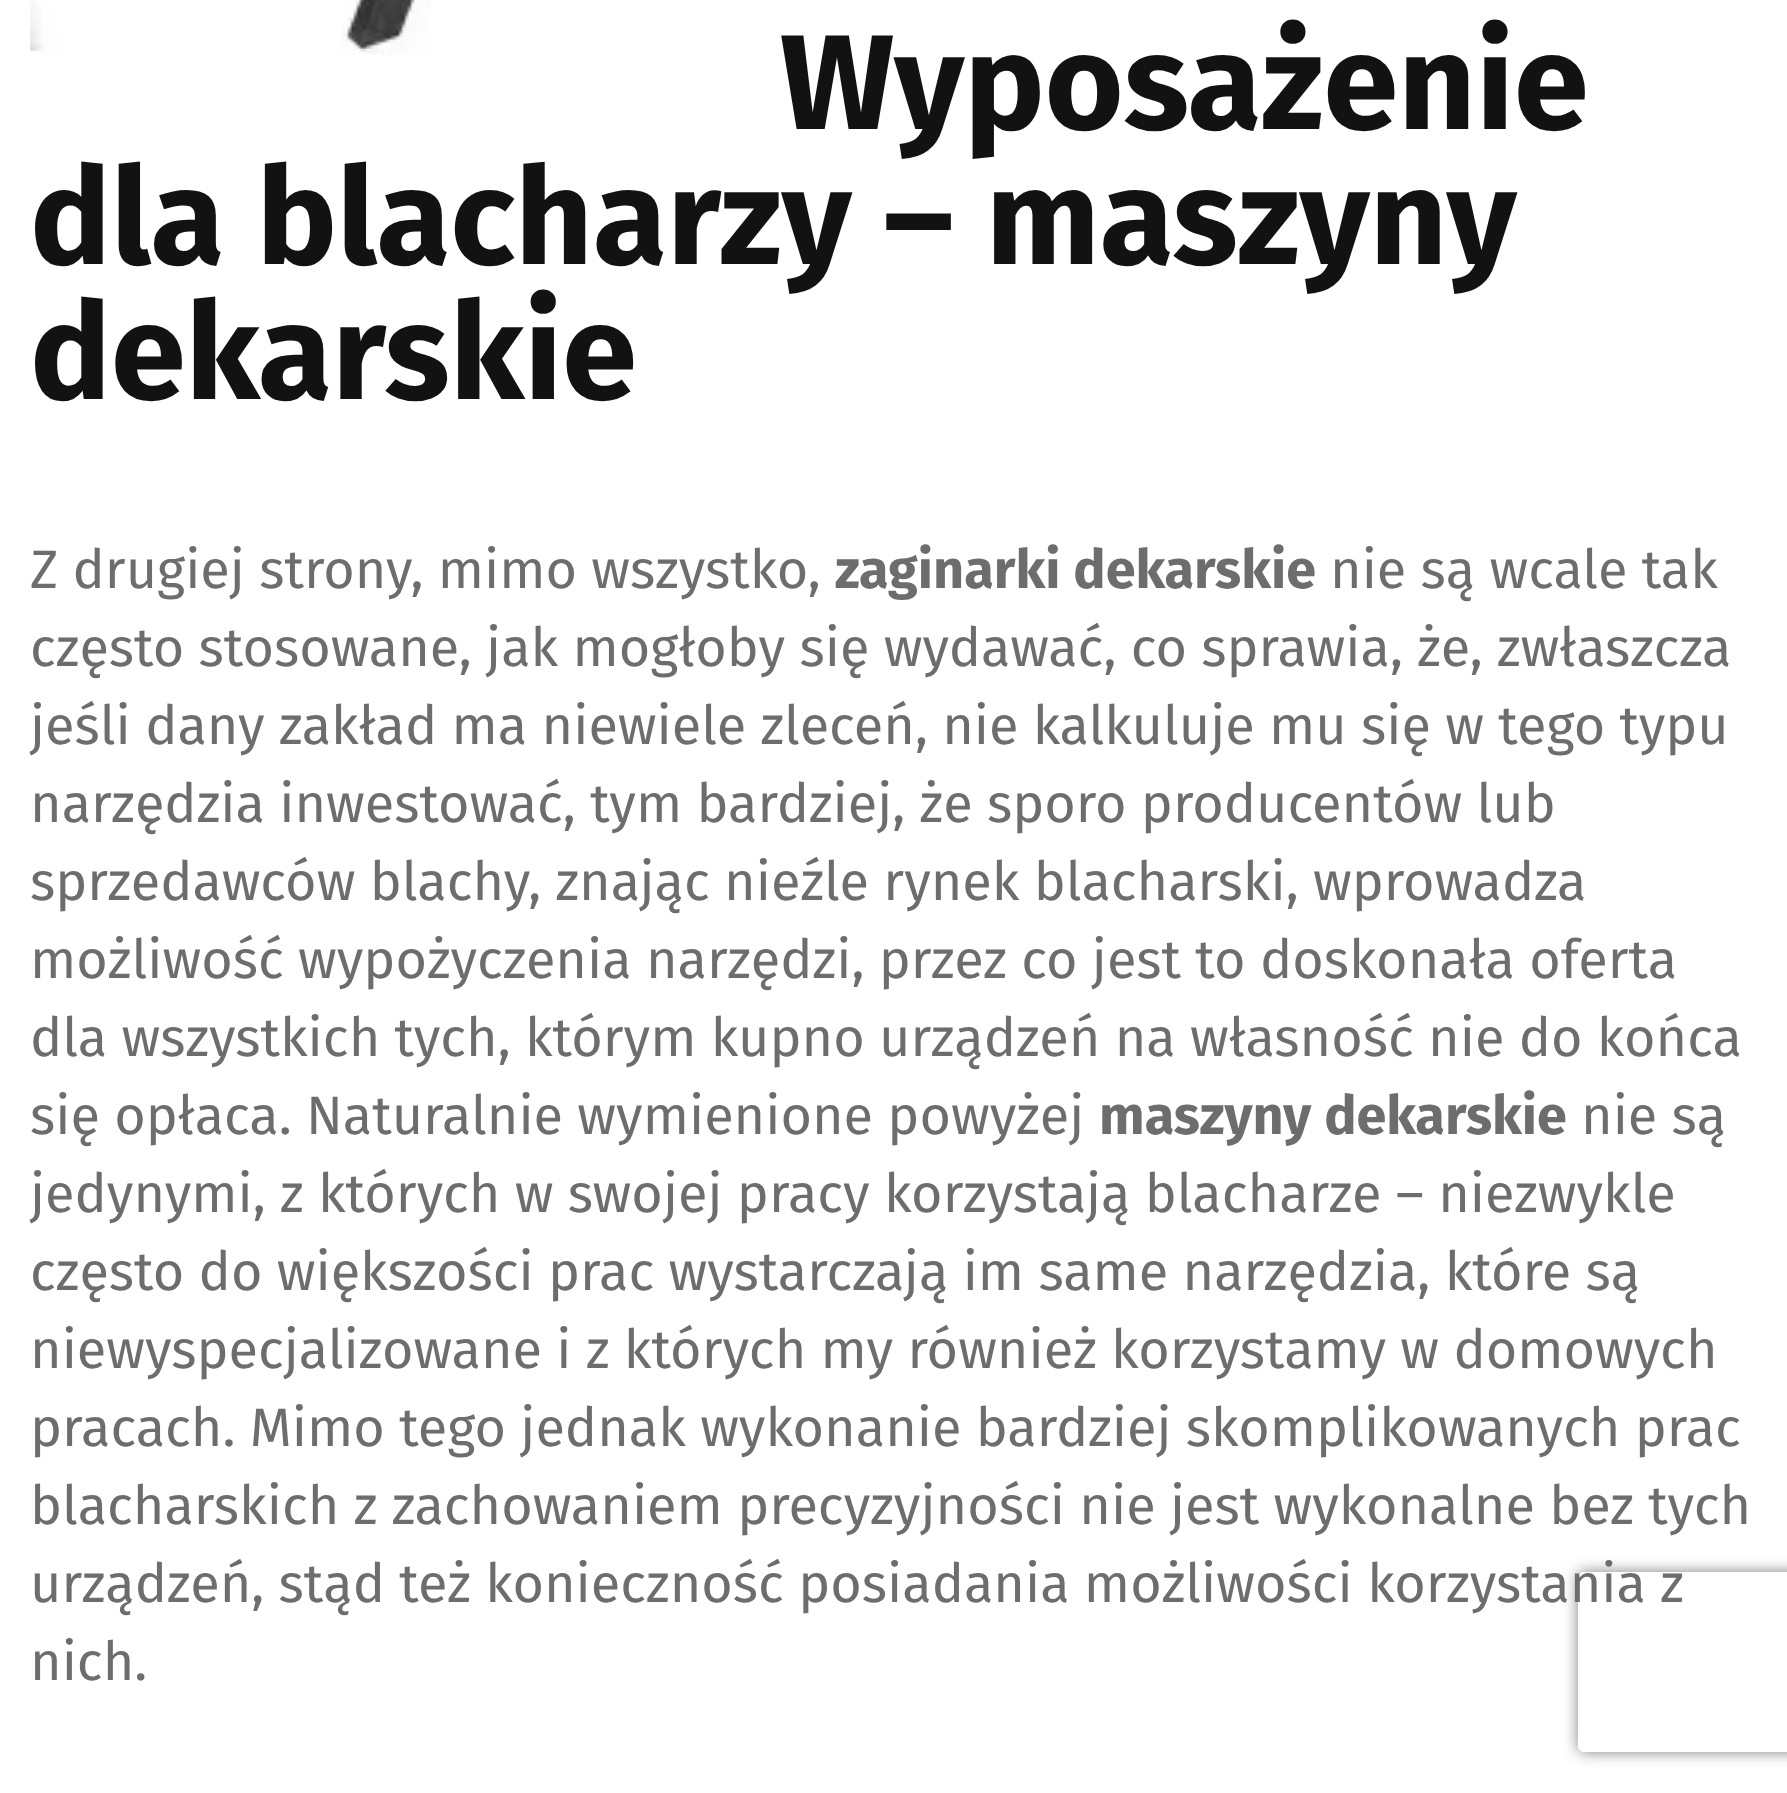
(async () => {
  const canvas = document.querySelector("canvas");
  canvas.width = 1787;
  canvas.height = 1793;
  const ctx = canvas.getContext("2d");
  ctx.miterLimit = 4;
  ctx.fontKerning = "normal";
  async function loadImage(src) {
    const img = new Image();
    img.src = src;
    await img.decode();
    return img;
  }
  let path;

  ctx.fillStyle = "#ffffff";
  ctx.fillRect(0, 0, 1787, 1793);
  ctx.drawImage(await loadImage("img/1.png"), 30, 0, 401, 55);
  ctx.save();
  path = new Path2D("M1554 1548H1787V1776H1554ZM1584 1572H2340C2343.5 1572 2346 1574.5 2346 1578V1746C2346 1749.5 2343.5 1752 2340 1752H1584C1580.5 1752 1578 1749.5 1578 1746V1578C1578 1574.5 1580.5 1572 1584 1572Z");
  ctx.clip(path, "evenodd");
  ctx.fillStyle = "#808080";
  ctx.filter = "blur(7.5px)";
  ctx.beginPath();
  ctx.roundRect(1578, 1572, 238, 180, 6);
  ctx.fill();
  ctx.filter = "none";
  ctx.restore();
  ctx.font = "bold 135px Fira Sans";
  ctx.fillStyle = "#121212";
  for (const [text, x, y] of [
    ["Wyposażenie", 780, 129],
    ["dla blacharzy – maszyny", 30, 264],
    ["dekarskie", 30, 399],
  ]) {
    ctx.fillText(text, x, y);
  }
  ctx.font = "54px Fira Sans";
  ctx.fillStyle = "#6d6d6d";
  ctx.fillText("Z drugiej strony, mimo wszystko,", 30, 588);
  ctx.font = "bold 54px Fira Sans";
  ctx.fillText("zaginarki dekarskie", 835, 588);
  ctx.font = "54px Fira Sans";
  for (const [text, x, y] of [
    ["nie są wcale tak", 1330, 588],
    ["często stosowane, jak mogłoby się wydawać, co sprawia, że, zwłaszcza", 30, 666],
    ["jeśli dany zakład ma niewiele zleceń, nie kalkuluje mu się w tego typu", 30, 744],
    ["narzędzia inwestować, tym bardziej, że sporo producentów lub", 30, 822],
    ["sprzedawców blachy, znając nieźle rynek blacharski, wprowadza", 30, 900],
    ["możliwość wypożyczenia narzędzi, przez co jest to doskonała oferta", 30, 978],
    ["dla wszystkich tych, którym kupno urządzeń na własność nie do końca", 30, 1056],
    ["się opłaca. Naturalnie wymienione powyżej", 30, 1134],
  ]) {
    ctx.fillText(text, x, y);
  }
  ctx.font = "bold 54px Fira Sans";
  ctx.fillText("maszyny dekarskie", 1099, 1134);
  ctx.font = "54px Fira Sans";
  for (const [text, x, y] of [
    ["nie są", 1581, 1134],
    ["jedynymi, z których w swojej pracy korzystają blacharze – niezwykle", 30, 1212],
    ["często do większości prac wystarczają im same narzędzia, które są", 30, 1290],
    ["niewyspecjalizowane i z których my również korzystamy w domowych", 30, 1368],
    ["pracach. Mimo tego jednak wykonanie bardziej skomplikowanych prac", 30, 1446],
    ["blacharskich z zachowaniem precyzyjności nie jest wykonalne bez tych", 30, 1524],
    ["urządzeń, stąd też konieczność posiadania możliwości korzystania z", 30, 1602],
    ["nich.", 30, 1680],
  ]) {
    ctx.fillText(text, x, y);
  }
})();
